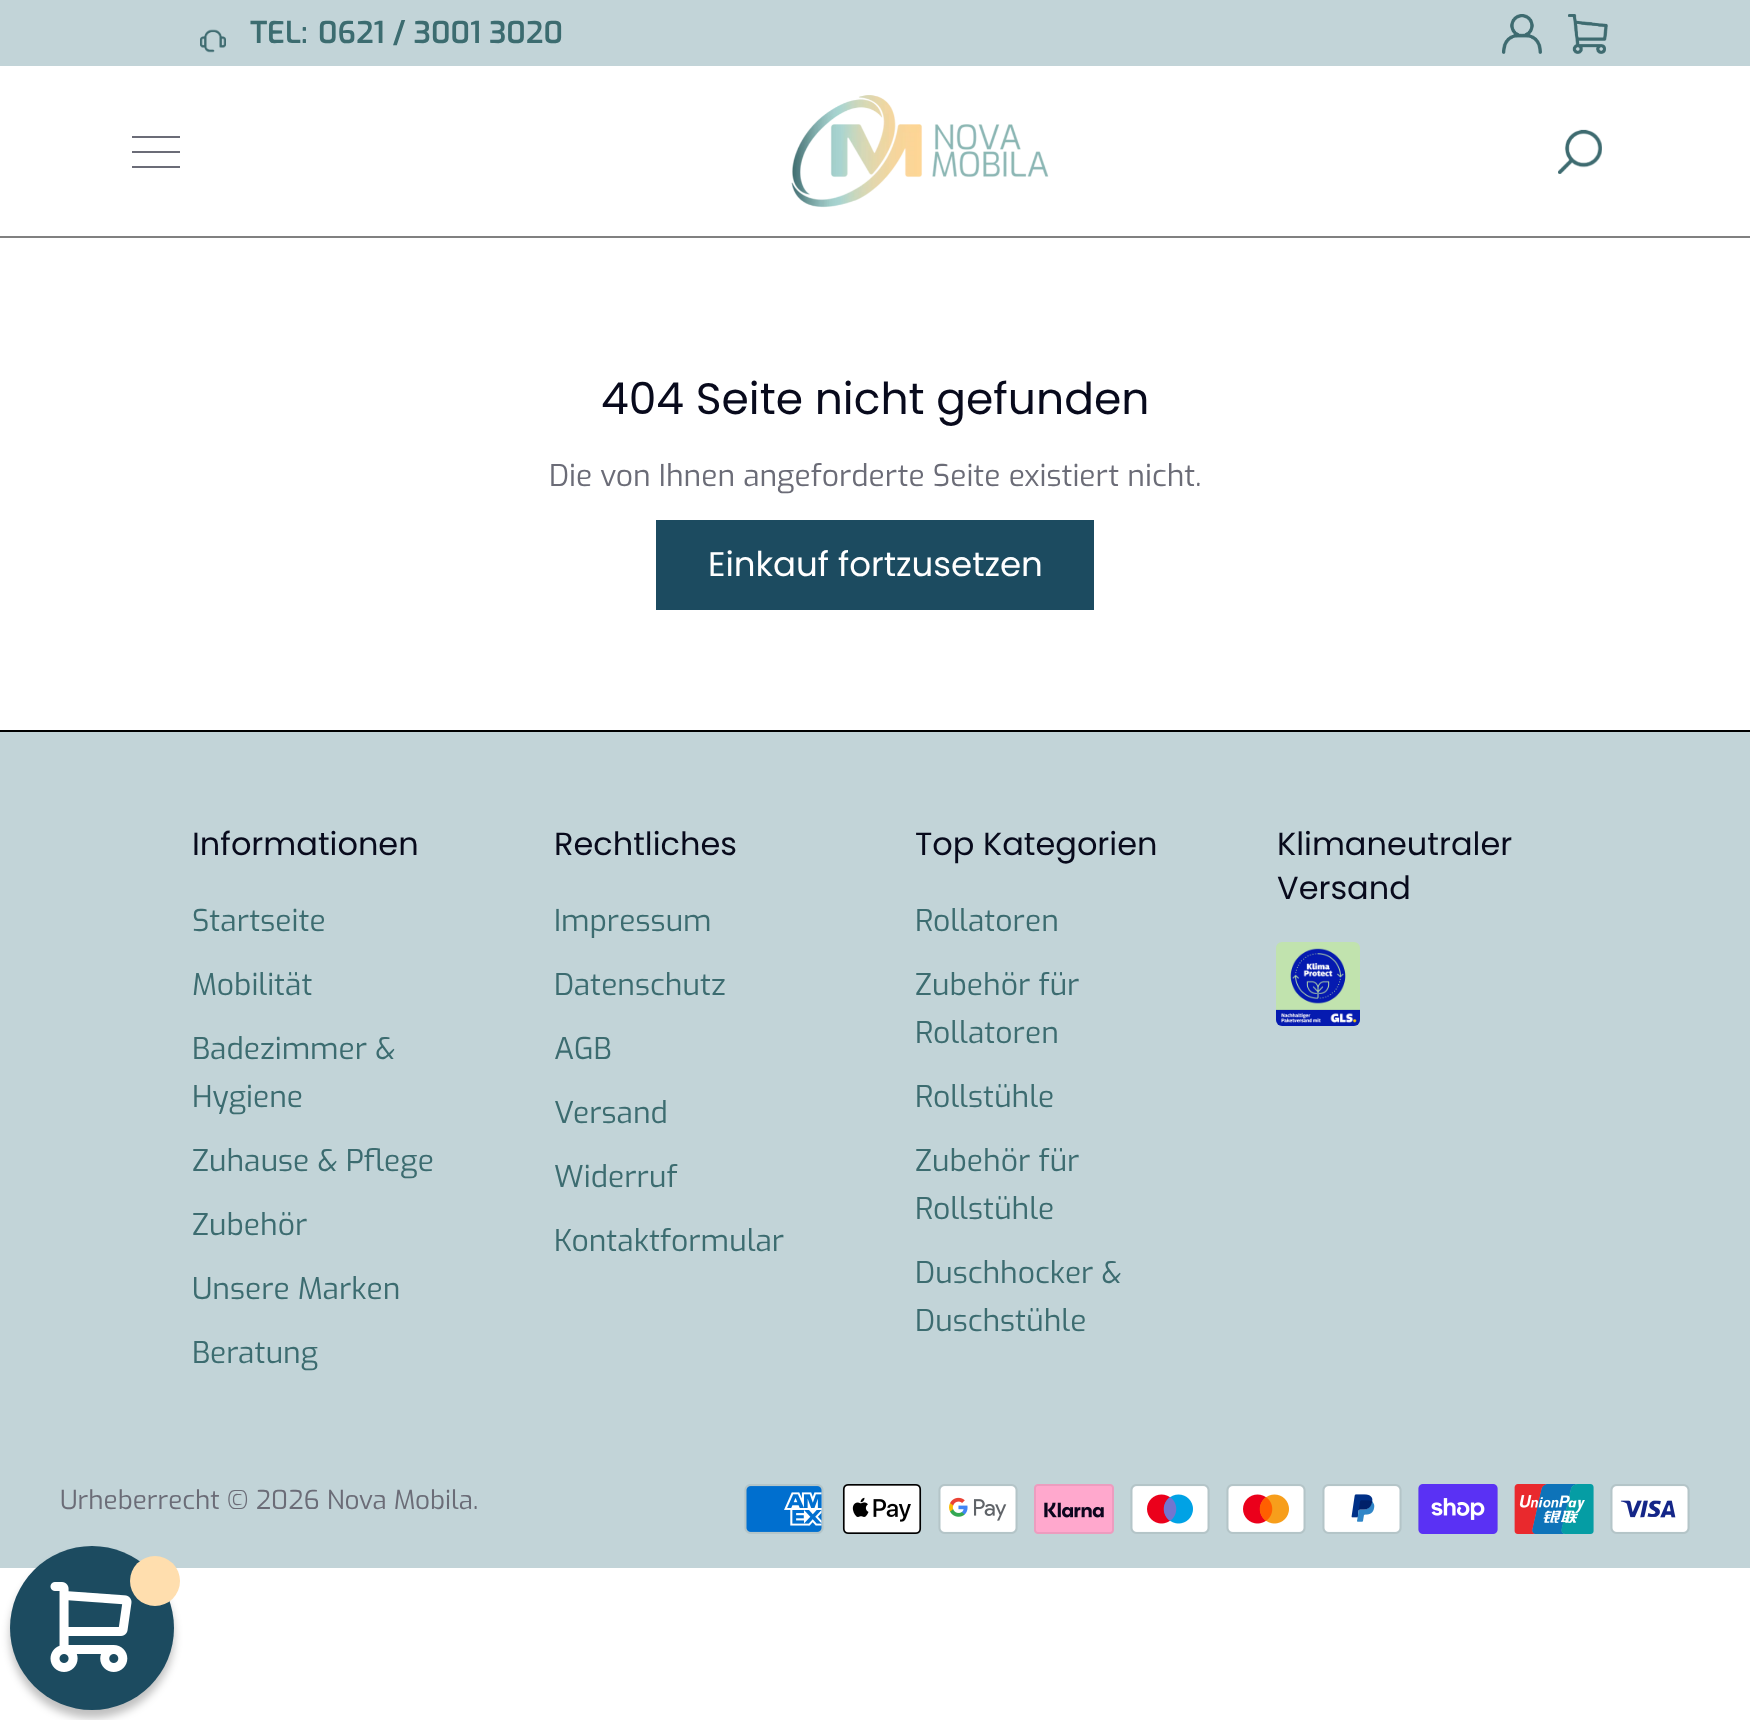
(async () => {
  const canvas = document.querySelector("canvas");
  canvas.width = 1750;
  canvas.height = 1720;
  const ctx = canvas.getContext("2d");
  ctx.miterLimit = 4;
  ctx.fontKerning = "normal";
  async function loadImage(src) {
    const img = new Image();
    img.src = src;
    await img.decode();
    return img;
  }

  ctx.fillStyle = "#ffffff";
  ctx.fillRect(0, 0, 1750, 1720);
  ctx.fillStyle = "#c2d4d8";
  ctx.fillRect(0, 0, 1750, 66);
  ctx.fillStyle = "#808080";
  ctx.fillRect(0, 236, 1750, 2);
  ctx.drawImage(await loadImage("img/1.png"), 200, 29, 26, 24);
  ctx.drawImage(await loadImage("img/2.png"), 1502, 14, 40, 40);
  ctx.drawImage(await loadImage("img/3.png"), 1568, 14, 40, 40);
  for (const [x, y, w, h, color] of [
    [132, 136, 48, 2, "#6b6c77"],
    [132, 151, 48, 2, "#6b6c77"],
    [132, 166, 48, 2, "#6b6c77"],
  ]) {
    ctx.fillStyle = color;
    ctx.fillRect(x, y, w, h);
  }
  ctx.drawImage(await loadImage("img/4.png"), 791, 95, 258, 113);
  ctx.drawImage(await loadImage("img/5.png"), 1558, 129, 44, 45);
  for (const [x, y, w, h, color] of [
    [656, 520, 438, 90, "#1c4b60"],
    [0, 732, 1750, 836, "#c2d4d8"],
    [0, 730, 1750, 2, "#000000"],
  ]) {
    ctx.fillStyle = color;
    ctx.fillRect(x, y, w, h);
  }
  ctx.drawImage(await loadImage("img/6.png"), 1276, 942, 84, 84);
  ctx.drawImage(await loadImage("img/7.png"), 744, 1484, 80, 50);
  ctx.drawImage(await loadImage("img/8.png"), 842, 1484, 80, 50);
  ctx.drawImage(await loadImage("img/9.png"), 938, 1484, 80, 50);
  ctx.drawImage(await loadImage("img/10.png"), 1034, 1484, 80, 50);
  ctx.drawImage(await loadImage("img/11.png"), 1130, 1484, 80, 50);
  ctx.drawImage(await loadImage("img/12.png"), 1226, 1484, 80, 50);
  ctx.drawImage(await loadImage("img/13.png"), 1322, 1484, 80, 50);
  ctx.drawImage(await loadImage("img/14.png"), 1418, 1484, 80, 50);
  ctx.drawImage(await loadImage("img/15.png"), 1514, 1484, 80, 50);
  ctx.drawImage(await loadImage("img/16.png"), 1610, 1484, 80, 50);
  ctx.fillStyle = "rgba(0, 0, 0, 0.25)";
  ctx.filter = "blur(4px)";
  ctx.beginPath();
  ctx.roundRect(10, 1554, 164, 164, 82);
  ctx.fill();
  ctx.filter = "none";
  ctx.fillStyle = "#1c4b60";
  ctx.beginPath();
  ctx.arc(92, 1628, 82, 0, Math.PI * 2);
  ctx.fill();
  ctx.fillStyle = "#ffdeae";
  ctx.beginPath();
  ctx.arc(155, 1581, 25, 0, Math.PI * 2);
  ctx.fill();
  ctx.drawImage(await loadImage("img/17.png"), 50, 1582, 82, 90);
  ctx.font = "600 30px Exo";
  ctx.fillStyle = "#3c6c70";
  ctx.fillText("TEL:", 250, 43);
  ctx.fillText("0621 / 3001 3020", 318, 43);
  ctx.font = "44px Poppins";
  ctx.fillStyle = "#080a1c";
  ctx.fillText("404 Seite nicht gefunden", 601, 414);
  ctx.font = "30px Exo";
  ctx.fillStyle = "#6b6c77";
  ctx.fillText("Die von Ihnen angeforderte Seite existiert nicht.", 549, 486);
  ctx.font = "34px Poppins";
  ctx.fillStyle = "#ffffff";
  ctx.fillText("Einkauf fortzusetzen", 708, 576);
  ctx.font = "32px Poppins";
  ctx.fillStyle = "#080a1c";
  ctx.fillText("Informationen", 192, 855);
  ctx.font = "30px Exo";
  ctx.fillStyle = "#3c6c70";
  for (const [text, x, y] of [
    ["Startseite", 192, 931],
    ["Mobilität", 192, 995],
    ["Badezimmer &", 192, 1059],
    ["Hygiene", 192, 1107],
    ["Zuhause & Pflege", 192, 1171],
    ["Zubehör", 192, 1235],
    ["Unsere Marken", 192, 1299],
    ["Beratung", 192, 1363],
  ]) {
    ctx.fillText(text, x, y);
  }
  ctx.font = "32px Poppins";
  ctx.fillStyle = "#080a1c";
  ctx.fillText("Rechtliches", 554, 855);
  ctx.font = "30px Exo";
  ctx.fillStyle = "#3c6c70";
  for (const [text, x, y] of [
    ["Impressum", 554, 931],
    ["Datenschutz", 554, 995],
    ["AGB", 554, 1059],
    ["Versand", 554, 1123],
    ["Widerruf", 554, 1187],
    ["Kontaktformular", 554, 1251],
  ]) {
    ctx.fillText(text, x, y);
  }
  ctx.font = "32px Poppins";
  ctx.fillStyle = "#080a1c";
  ctx.fillText("Top Kategorien", 915, 855);
  ctx.font = "30px Exo";
  ctx.fillStyle = "#3c6c70";
  for (const [text, x, y] of [
    ["Rollatoren", 915, 931],
    ["Zubehör für", 915, 995],
    ["Rollatoren", 915, 1043],
    ["Rollstühle", 915, 1107],
    ["Zubehör für", 915, 1171],
    ["Rollstühle", 915, 1219],
    ["Duschhocker &", 915, 1283],
    ["Duschstühle", 915, 1331],
  ]) {
    ctx.fillText(text, x, y);
  }
  ctx.font = "32px Poppins";
  ctx.fillStyle = "#080a1c";
  ctx.fillText("Klimaneutraler", 1277, 855);
  ctx.fillText("Versand", 1277, 899);
  ctx.font = "26px Exo";
  ctx.fillStyle = "#6b6c77";
  ctx.fillText("Urheberrecht © 2026 Nova Mobila.", 60, 1509);
})();
